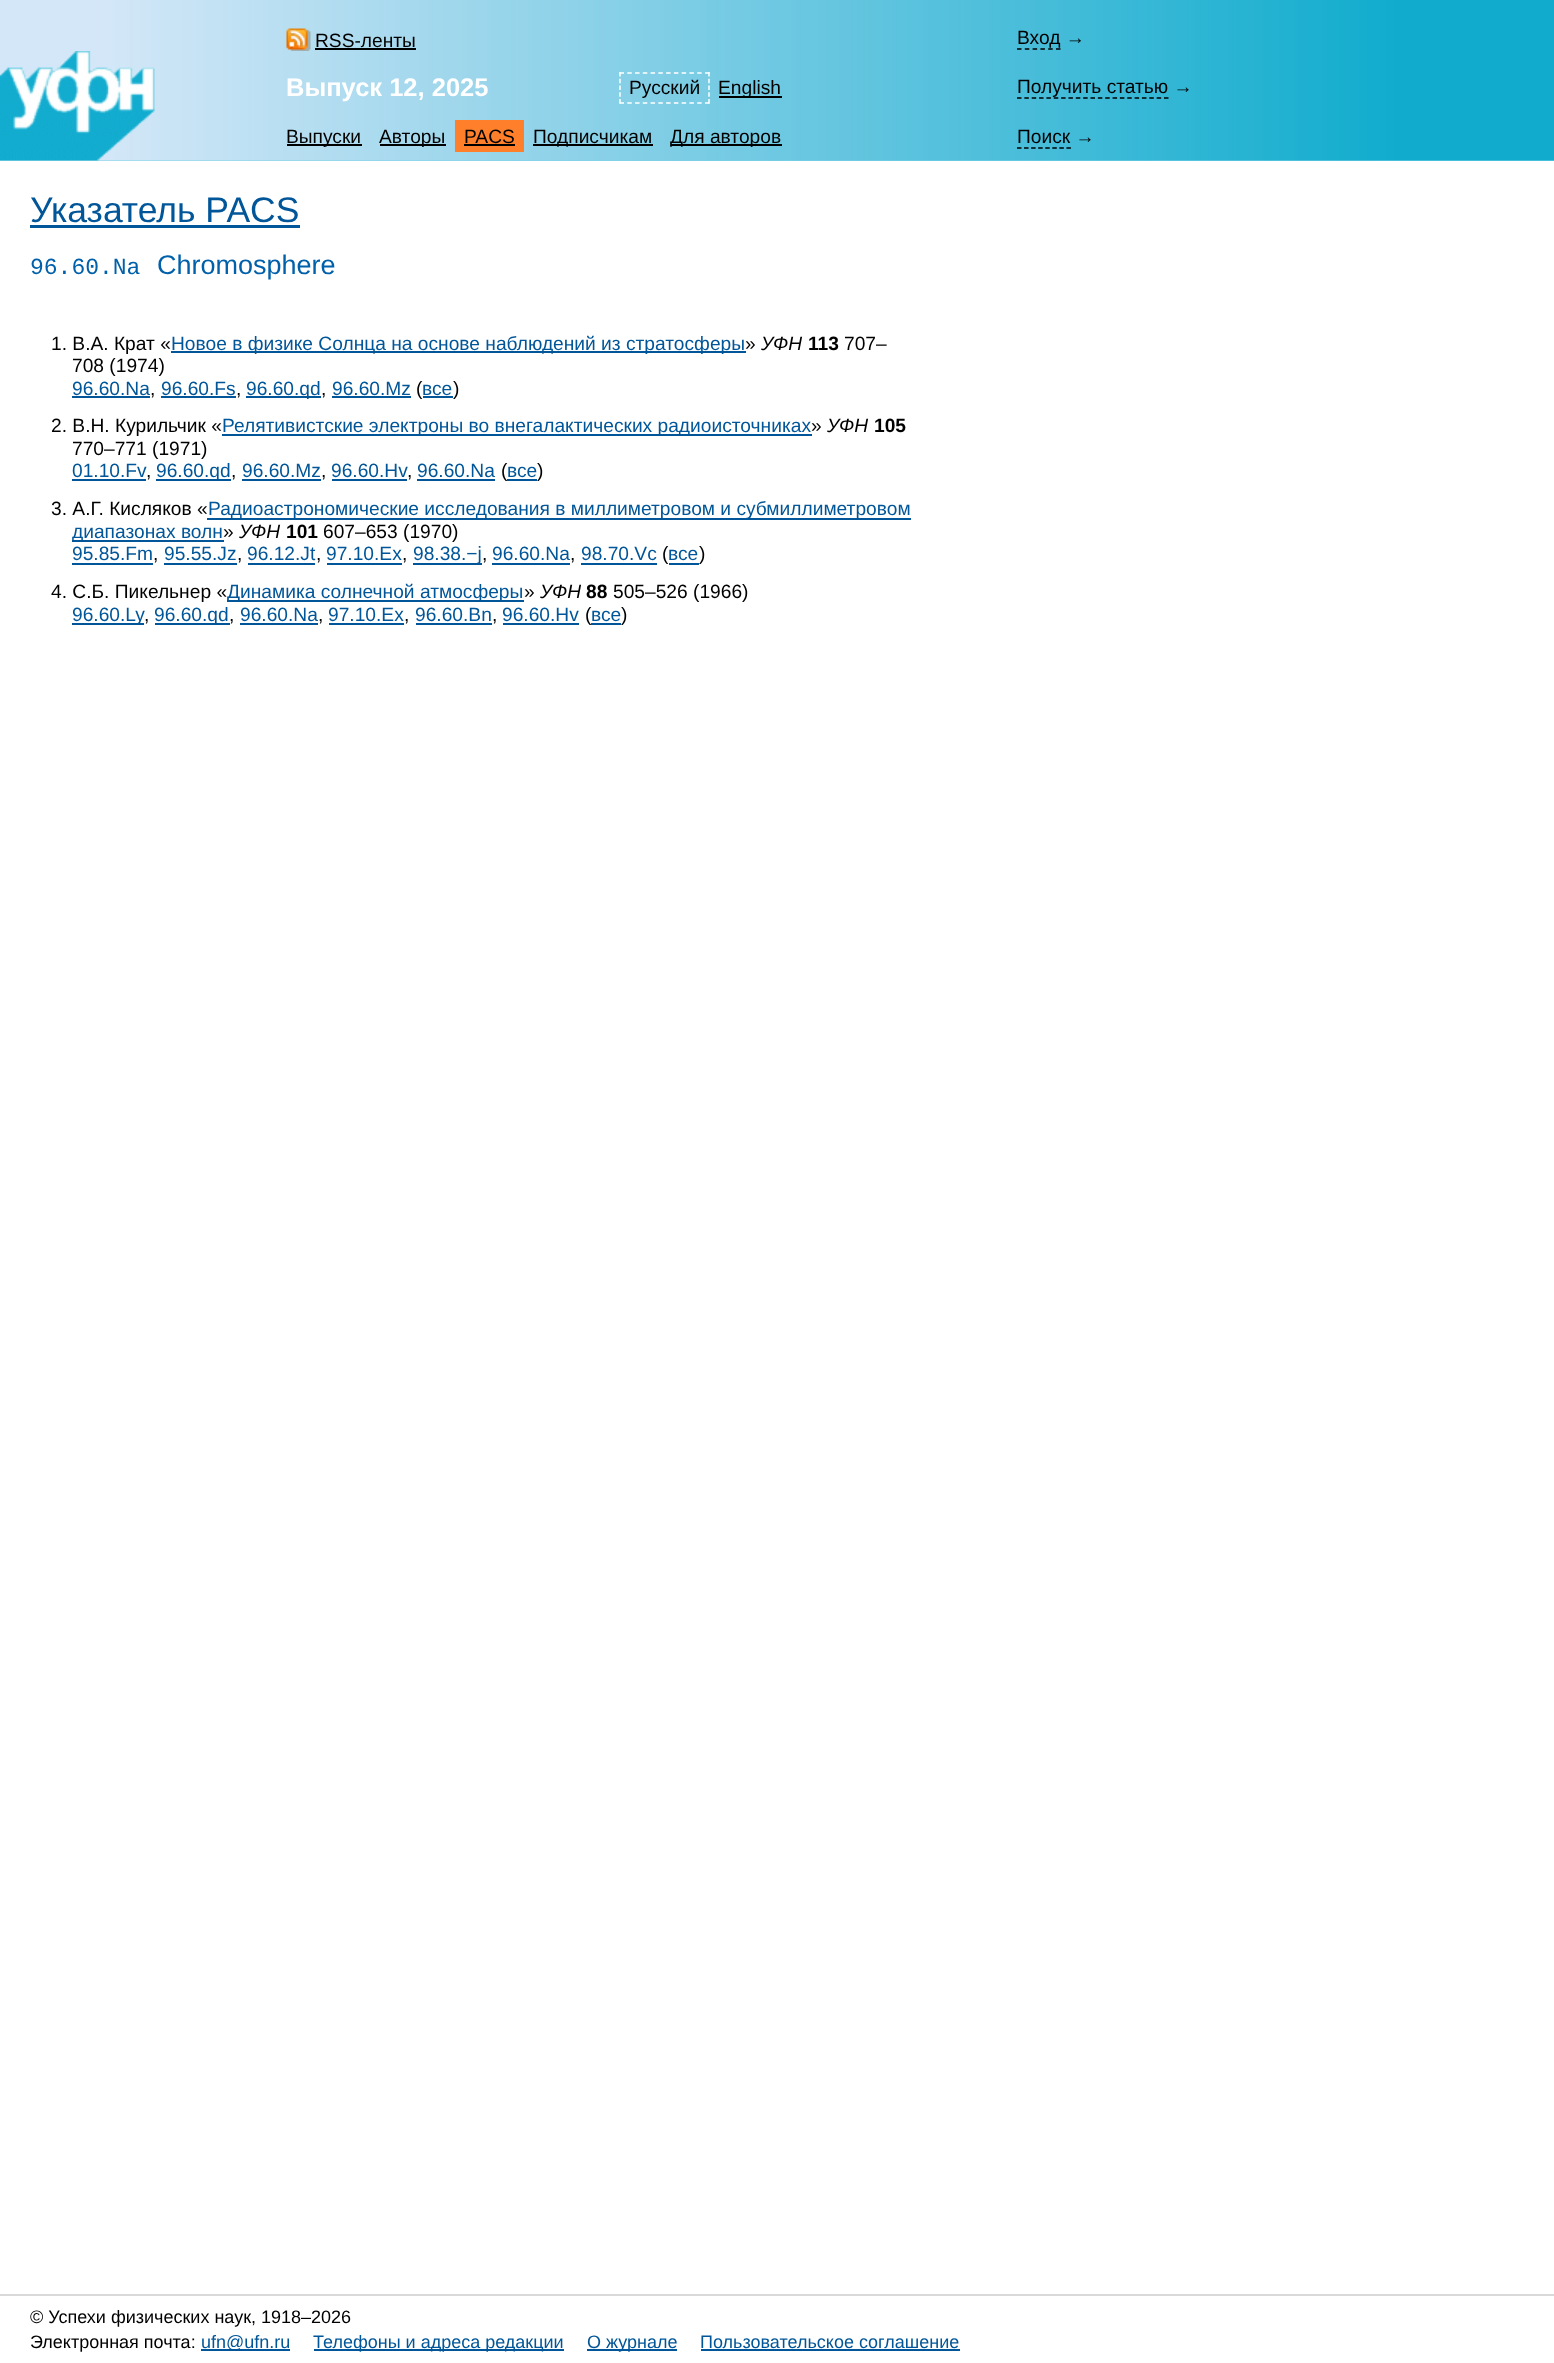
(async () => {
  const canvas = document.querySelector("canvas");
  canvas.width = 1554;
  canvas.height = 2363;
  const ctx = canvas.getContext("2d");
  ctx.miterLimit = 4;
  ctx.fontKerning = "normal";
  async function loadImage(src) {
    const img = new Image();
    img.src = src;
    await img.decode();
    return img;
  }
  let path;

  ctx.fillStyle = "#ffffff";
  ctx.fillRect(0, 0, 1554, 2363);
  ctx.fillStyle = "#7cd3e6";
  ctx.fillRect(0, 160, 1554, 1);
  ctx.drawImage(await loadImage("img/1.png"), 0, 0, 1554, 161);
  ctx.drawImage(await loadImage("img/2.png"), 286, 28, 25, 23);
  ctx.fillStyle = "#000000";
  ctx.fillRect(315, 48, 101, 2);
  path = new Path2D("M1017 49H1060.5");
  ctx.strokeStyle = "#000000";
  ctx.lineWidth = 1.5;
  ctx.setLineDash([4.5, 3.3]);
  ctx.stroke(path);
  ctx.drawImage(await loadImage("img/3.png"), 0, 51, 155, 110);
  path = new Path2D("M619.5 73H709.5");
  ctx.strokeStyle = "#ffffff";
  ctx.setLineDash([4.5, 3.27]);
  ctx.stroke(path);
  path = new Path2D("M709 72V103.5");
  ctx.setLineDash([4.5, 2.25]);
  ctx.stroke(path);
  path = new Path2D("M619.5 103H709.5");
  ctx.setLineDash([4.5, 3.27]);
  ctx.stroke(path);
  path = new Path2D("M620 72V103.5");
  ctx.setLineDash([4.5, 2.25]);
  ctx.stroke(path);
  ctx.fillRect(719, 96, 63, 2);
  path = new Path2D("M1017 98H1168.5");
  ctx.strokeStyle = "#000000";
  ctx.setLineDash([4.5, 2.85]);
  ctx.stroke(path);
  for (const [x, y, w, h, color] of [
    [287, 144, 75, 2, "#000000"],
    [380, 144, 66, 2, "#000000"],
    [455, 120, 69, 32, "#ff7f2a"],
    [464, 144, 51, 2, "#000000"],
    [533, 144, 120, 2, "#000000"],
    [671, 144, 111, 2, "#000000"],
  ]) {
    ctx.fillStyle = color;
    ctx.fillRect(x, y, w, h);
  }
  path = new Path2D("M1017 148H1071");
  ctx.setLineDash([4.5, 2.56]);
  ctx.stroke(path);
  for (const [x, y, w, h, color] of [
    [30, 225, 270, 3, "#005698"],
    [171, 351, 575, 2, "#005698"],
    [72, 396, 78, 2, "#005698"],
    [161, 396, 75, 2, "#005698"],
    [246, 396, 75, 2, "#005698"],
    [332, 396, 79, 2, "#005698"],
    [423, 396, 30, 2, "#005698"],
    [222, 434, 590, 2, "#005698"],
    [72, 479, 74, 2, "#005698"],
    [156, 479, 75, 2, "#005698"],
    [242, 479, 79, 2, "#005698"],
    [332, 479, 75, 2, "#005698"],
    [417, 479, 78, 2, "#005698"],
    [507, 479, 30, 2, "#005698"],
    [207, 518, 704, 2, "#005698"],
    [72, 540, 152, 2, "#005698"],
    [72, 563, 81, 2, "#005698"],
    [164, 563, 73, 2, "#005698"],
    [248, 563, 67, 2, "#005698"],
    [327, 563, 75, 2, "#005698"],
    [413, 563, 69, 2, "#005698"],
    [492, 563, 78, 2, "#005698"],
    [581, 563, 76, 2, "#005698"],
    [669, 563, 30, 2, "#005698"],
    [227, 600, 297, 2, "#005698"],
    [72, 623, 72, 2, "#005698"],
    [155, 623, 75, 2, "#005698"],
    [240, 623, 78, 2, "#005698"],
    [329, 623, 75, 2, "#005698"],
    [416, 623, 76, 2, "#005698"],
    [503, 623, 76, 2, "#005698"],
    [591, 623, 30, 2, "#005698"],
    [0, 2294, 1554, 2, "#d9d9d9"],
    [201, 2349, 89, 2, "#005698"],
    [314, 2349, 250, 2, "#005698"],
    [587, 2349, 90, 2, "#005698"],
    [701, 2349, 259, 2, "#005698"],
  ]) {
    ctx.fillStyle = color;
    ctx.fillRect(x, y, w, h);
  }
  ctx.font = "19.2px Liberation Sans";
  ctx.fillStyle = "#000000";
  for (const [text, x, y] of [
    ["RSS-ленты", 315, 47],
    ["Вход →", 1017, 44],
    ["Русский", 629, 94],
    ["English", 718, 94],
  ]) {
    ctx.fillText(text, x, y);
  }
  ctx.font = "bold 25.5px Liberation Sans";
  ctx.fillStyle = "#ffffff";
  ctx.fillText("Выпуск 12, 2025", 286, 96);
  ctx.font = "19.2px Liberation Sans";
  ctx.fillStyle = "#000000";
  for (const [text, x, y] of [
    ["Получить статью →", 1017, 93],
    ["Выпуски", 286, 143],
    ["Авторы", 379, 143],
    ["PACS", 464, 143],
    ["Подписчикам", 533, 143],
    ["Для авторов", 670, 143],
    ["Поиск →", 1017, 143],
  ]) {
    ctx.fillText(text, x, y);
  }
  ctx.font = "35.5px Liberation Sans";
  ctx.fillStyle = "#005698";
  ctx.fillText("Указатель PACS", 30, 222);
  ctx.font = "23px Liberation Mono";
  ctx.fillStyle = "#0060a9";
  ctx.fillText("96.60.Na", 30, 274);
  ctx.font = "27px Liberation Sans";
  ctx.fillText("Chromosphere", 157, 274);
  ctx.font = "19.2px Liberation Sans";
  ctx.fillStyle = "#000000";
  ctx.fillText("1. В.А. Крат «", 51, 350);
  ctx.fillStyle = "#005698";
  ctx.fillText("Новое в физике Солнца на основе наблюдений из стратосферы", 171, 350);
  ctx.fillStyle = "#000000";
  ctx.fillText("»", 745, 350);
  ctx.font = "italic 19.2px Liberation Sans";
  ctx.fillText("УФН", 761, 350);
  ctx.font = "bold 19.2px Liberation Sans";
  ctx.fillText("113", 808, 350);
  ctx.font = "19.2px Liberation Sans";
  ctx.fillText("707–", 844, 350);
  ctx.fillText("708 (1974)", 72, 372);
  ctx.fillStyle = "#005698";
  ctx.fillText("96.60.Na", 72, 395);
  ctx.fillStyle = "#000000";
  ctx.fillText(",", 150, 395);
  ctx.fillStyle = "#005698";
  ctx.fillText("96.60.Fs", 161, 395);
  ctx.fillStyle = "#000000";
  ctx.fillText(",", 236, 395);
  ctx.fillStyle = "#005698";
  ctx.fillText("96.60.qd", 246, 395);
  ctx.fillStyle = "#000000";
  ctx.fillText(",", 321, 395);
  ctx.fillStyle = "#005698";
  ctx.fillText("96.60.Mz", 332, 395);
  ctx.fillStyle = "#000000";
  ctx.fillText("(", 416, 395);
  ctx.fillStyle = "#005698";
  ctx.fillText("все", 422, 395);
  ctx.fillStyle = "#000000";
  ctx.fillText(")", 453, 395);
  ctx.fillText("2. В.Н. Курильчик «", 51, 432);
  ctx.fillStyle = "#005698";
  ctx.fillText("Релятивистские электроны во внегалактических радиоисточниках", 222, 432);
  ctx.fillStyle = "#000000";
  ctx.fillText("»", 811, 432);
  ctx.font = "italic 19.2px Liberation Sans";
  ctx.fillText("УФН", 827, 432);
  ctx.font = "bold 19.2px Liberation Sans";
  ctx.fillText("105", 874, 432);
  ctx.font = "19.2px Liberation Sans";
  ctx.fillText("770–771 (1971)", 72, 455);
  ctx.fillStyle = "#005698";
  ctx.fillText("01.10.Fv", 72, 477);
  ctx.fillStyle = "#000000";
  ctx.fillText(",", 146, 477);
  ctx.fillStyle = "#005698";
  ctx.fillText("96.60.qd", 156, 477);
  ctx.fillStyle = "#000000";
  ctx.fillText(",", 231, 477);
  ctx.fillStyle = "#005698";
  ctx.fillText("96.60.Mz", 242, 477);
  ctx.fillStyle = "#000000";
  ctx.fillText(",", 321, 477);
  ctx.fillStyle = "#005698";
  ctx.fillText("96.60.Hv", 331, 477);
  ctx.fillStyle = "#000000";
  ctx.fillText(",", 407, 477);
  ctx.fillStyle = "#005698";
  ctx.fillText("96.60.Na", 417, 477);
  ctx.fillStyle = "#000000";
  ctx.fillText("(", 501, 477);
  ctx.fillStyle = "#005698";
  ctx.fillText("все", 507, 477);
  ctx.fillStyle = "#000000";
  ctx.fillText(")", 537, 477);
  ctx.fillText("3. А.Г. Кисляков «", 51, 515);
  ctx.fillStyle = "#005698";
  ctx.fillText("Радиоастрономические исследования в миллиметровом и субмиллиметровом", 208, 515);
  ctx.fillText("диапазонах волн", 72, 538);
  ctx.fillStyle = "#000000";
  ctx.fillText("»", 223, 538);
  ctx.font = "italic 19.2px Liberation Sans";
  ctx.fillText("УФН", 239, 538);
  ctx.font = "bold 19.2px Liberation Sans";
  ctx.fillText("101", 286, 538);
  ctx.font = "19.2px Liberation Sans";
  ctx.fillText("607–653 (1970)", 323, 538);
  ctx.fillStyle = "#005698";
  ctx.fillText("95.85.Fm", 72, 560);
  ctx.fillStyle = "#000000";
  ctx.fillText(",", 153, 560);
  ctx.fillStyle = "#005698";
  ctx.fillText("95.55.Jz", 164, 560);
  ctx.fillStyle = "#000000";
  ctx.fillText(",", 237, 560);
  ctx.fillStyle = "#005698";
  ctx.fillText("96.12.Jt", 247, 560);
  ctx.fillStyle = "#000000";
  ctx.fillText(",", 316, 560);
  ctx.fillStyle = "#005698";
  ctx.fillText("97.10.Ex", 326, 560);
  ctx.fillStyle = "#000000";
  ctx.fillText(",", 402, 560);
  ctx.fillStyle = "#005698";
  ctx.fillText("98.38.−j", 413, 560);
  ctx.fillStyle = "#000000";
  ctx.fillText(",", 482, 560);
  ctx.fillStyle = "#005698";
  ctx.fillText("96.60.Na", 492, 560);
  ctx.fillStyle = "#000000";
  ctx.fillText(",", 570, 560);
  ctx.fillStyle = "#005698";
  ctx.fillText("98.70.Vc", 581, 560);
  ctx.fillStyle = "#000000";
  ctx.fillText("(", 662, 560);
  ctx.fillStyle = "#005698";
  ctx.fillText("все", 668, 560);
  ctx.fillStyle = "#000000";
  ctx.fillText(")", 699, 560);
  ctx.fillText("4. С.Б. Пикельнер «", 51, 598);
  ctx.fillStyle = "#005698";
  ctx.fillText("Динамика солнечной атмосферы", 227, 598);
  ctx.fillStyle = "#000000";
  ctx.fillText("»", 524, 598);
  ctx.font = "italic 19.2px Liberation Sans";
  ctx.fillText("УФН", 540, 598);
  ctx.font = "bold 19.2px Liberation Sans";
  ctx.fillText("88", 586, 598);
  ctx.font = "19.2px Liberation Sans";
  ctx.fillText("505–526 (1966)", 613, 598);
  ctx.fillStyle = "#005698";
  ctx.fillText("96.60.Ly", 72, 621);
  ctx.fillStyle = "#000000";
  ctx.fillText(",", 144, 621);
  ctx.fillStyle = "#005698";
  ctx.fillText("96.60.qd", 154, 621);
  ctx.fillStyle = "#000000";
  ctx.fillText(",", 229, 621);
  ctx.fillStyle = "#005698";
  ctx.fillText("96.60.Na", 240, 621);
  ctx.fillStyle = "#000000";
  ctx.fillText(",", 318, 621);
  ctx.fillStyle = "#005698";
  ctx.fillText("97.10.Ex", 328, 621);
  ctx.fillStyle = "#000000";
  ctx.fillText(",", 404, 621);
  ctx.fillStyle = "#005698";
  ctx.fillText("96.60.Bn", 415, 621);
  ctx.fillStyle = "#000000";
  ctx.fillText(",", 492, 621);
  ctx.fillStyle = "#005698";
  ctx.fillText("96.60.Hv", 502, 621);
  ctx.fillStyle = "#000000";
  ctx.fillText("(", 585, 621);
  ctx.fillStyle = "#005698";
  ctx.fillText("все", 591, 621);
  ctx.fillStyle = "#000000";
  ctx.fillText(")", 621, 621);
  ctx.font = "18px Liberation Sans";
  ctx.fillText("© Успехи физических наук, 1918–2026", 30, 2323);
  ctx.fillText("Электронная почта:", 30, 2348);
  ctx.fillStyle = "#005698";
  for (const [text, x, y] of [
    ["ufn@ufn.ru", 201, 2348],
    ["Телефоны и адреса редакции", 313, 2348],
    ["О журнале", 587, 2348],
    ["Пользовательское соглашение", 700, 2348],
  ]) {
    ctx.fillText(text, x, y);
  }
})();
